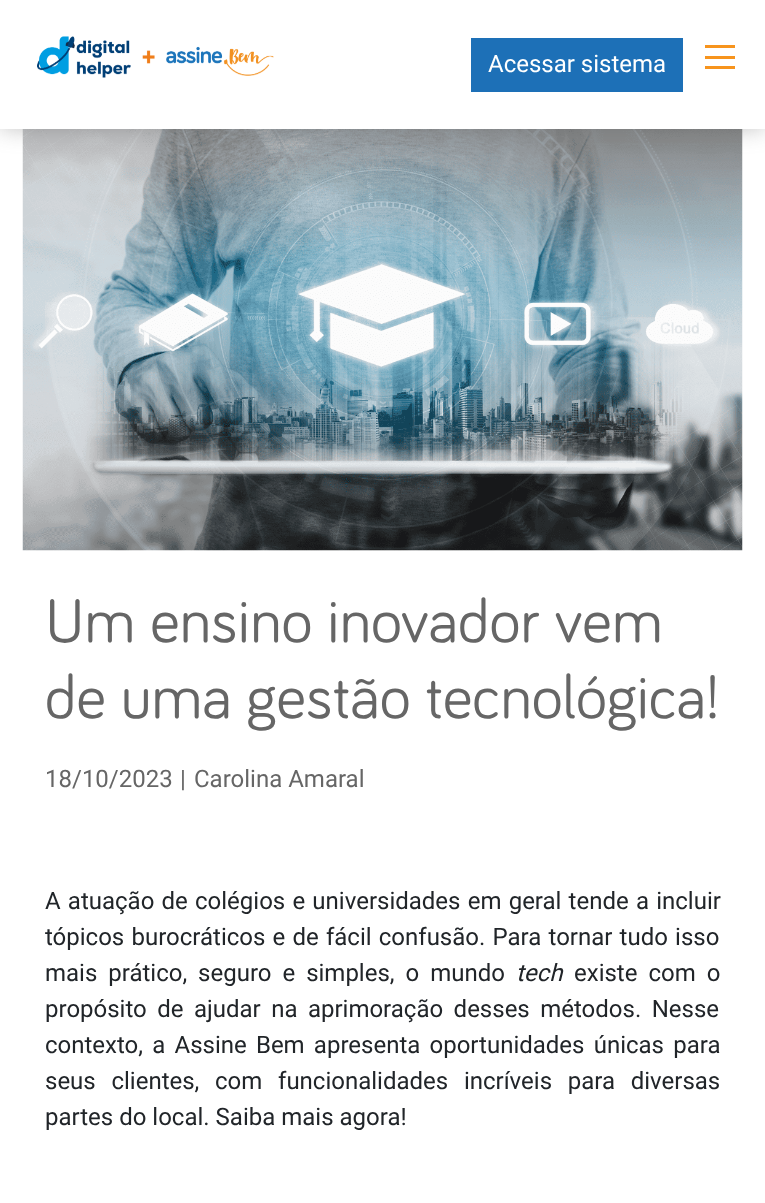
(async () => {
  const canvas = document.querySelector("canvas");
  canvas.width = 765;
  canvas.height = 1203;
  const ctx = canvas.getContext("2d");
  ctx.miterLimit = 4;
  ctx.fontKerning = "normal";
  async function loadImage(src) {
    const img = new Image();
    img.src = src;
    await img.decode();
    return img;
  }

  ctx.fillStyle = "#ffffff";
  ctx.fillRect(0, 0, 765, 1203);
  ctx.drawImage(await loadImage("img/2.png"), 22, 129, 721, 422);
  ctx.fillStyle = "rgba(102, 102, 102, 0.4)";
  ctx.filter = "blur(11px)";
  ctx.beginPath();
  ctx.rect(0, 0, 765, 129);
  ctx.fill();
  ctx.filter = "none";
  ctx.fillStyle = "#ffffff";
  ctx.fillRect(0, 0, 765, 129);
  ctx.drawImage(await loadImage("img/1.png"), 37, 36, 237, 42);
  for (const [x, y, w, h, color] of [
    [471, 38, 212, 54, "#1d70b7"],
    [705, 45, 30, 3, "#f7941d"],
    [705, 56, 30, 3, "#f7941d"],
    [705, 66, 30, 3, "#f7941d"],
  ]) {
    ctx.fillStyle = color;
    ctx.fillRect(x, y, w, h);
  }
  ctx.font = "24px Roboto";
  ctx.fillStyle = "#ffffff";
  ctx.fillText("Acessar sistema", 488, 72);
  ctx.font = "63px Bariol";
  ctx.fillStyle = "#666666";
  ctx.fillText("Um ensino inovador vem", 45, 642);
  ctx.fillText("de uma gestão tecnológica!", 45, 718);
  ctx.font = "24px Roboto";
  for (const [text, x, y] of [
    ["18/10/2023", 45, 787],
    ["|", 180, 787],
    ["Carolina Amaral", 194, 787],
  ]) {
    ctx.fillText(text, x, y);
  }
  ctx.wordSpacing = "1.25px";
  ctx.fillStyle = "#212529";
  ctx.fillText("A atuação de colégios e universidades em geral tende a incluir", 45, 909);
  ctx.fillText("tópicos burocráticos e de fácil confusão. Para tornar tudo isso", 45, 945);
  ctx.wordSpacing = "5px";
  ctx.fillText("mais prático, seguro e simples, o mundo", 45, 981);
  ctx.wordSpacing = "0px";
  ctx.font = "italic 24px Roboto";
  ctx.fillText("tech", 516, 981);
  ctx.wordSpacing = "5px";
  ctx.font = "24px Roboto";
  ctx.fillText("existe com o", 574, 981);
  ctx.wordSpacing = "4.5px";
  ctx.fillText("propósito de ajudar na aprimoração desses métodos. Nesse", 45, 1017);
  ctx.wordSpacing = "3.25px";
  ctx.fillText("contexto, a Assine Bem apresenta oportunidades únicas para", 45, 1053);
  ctx.wordSpacing = "9.75px";
  ctx.fillText("seus clientes, com funcionalidades incríveis para diversas", 45, 1089);
  ctx.wordSpacing = "0px";
  ctx.fillText("partes do local. Saiba mais agora!", 45, 1125);
})();
